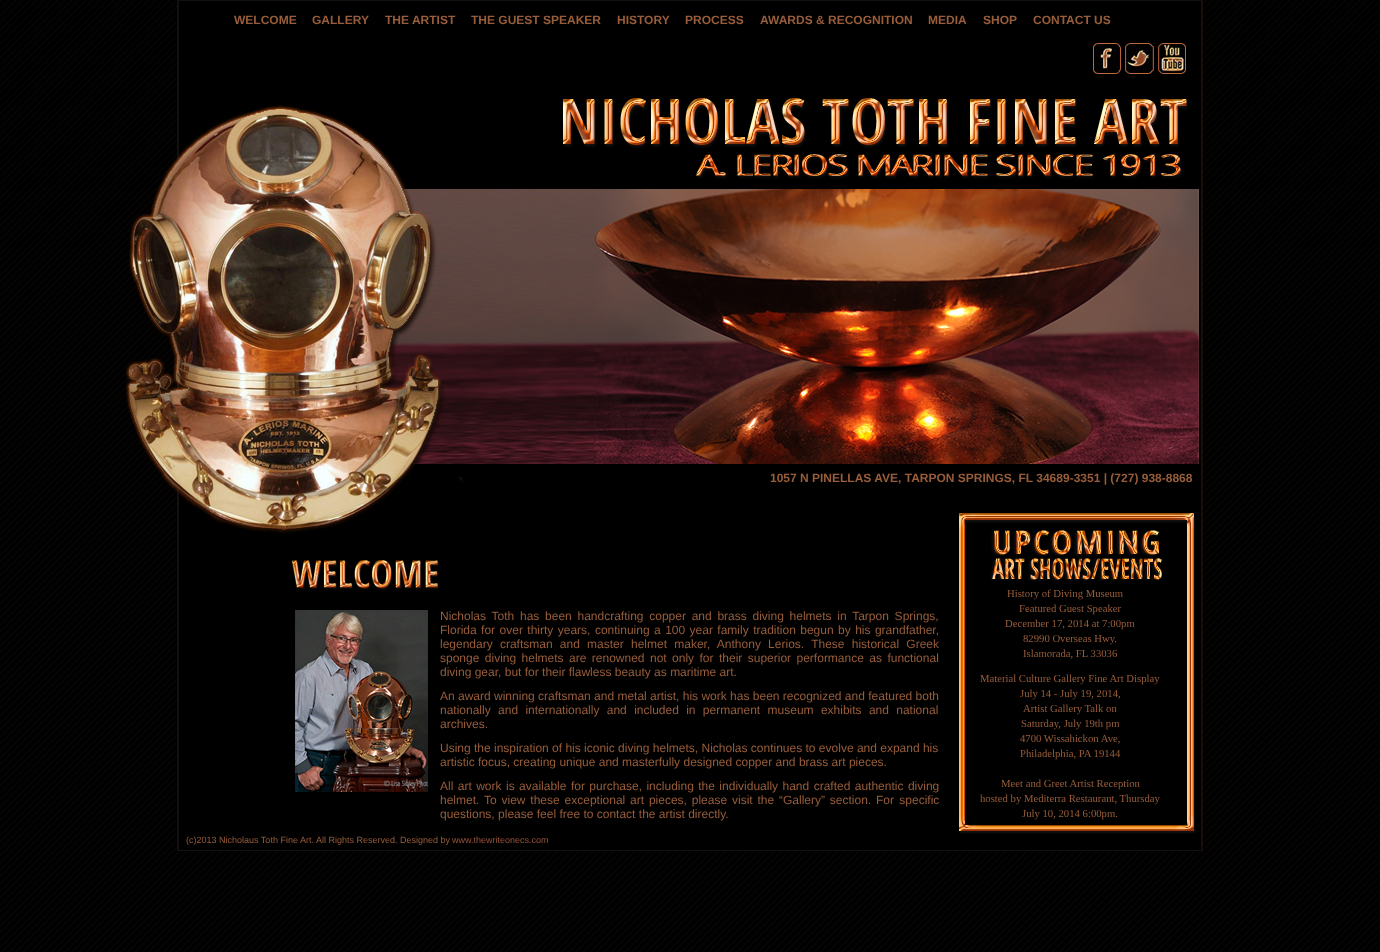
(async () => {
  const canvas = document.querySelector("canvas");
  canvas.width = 1380;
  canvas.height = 952;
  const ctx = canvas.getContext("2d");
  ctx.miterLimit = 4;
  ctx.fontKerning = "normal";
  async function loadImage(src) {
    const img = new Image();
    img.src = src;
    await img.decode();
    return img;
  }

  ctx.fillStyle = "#ffffff";
  ctx.fillRect(0, 0, 1380, 952);
  ctx.drawImage(await loadImage("img/1.png"), 0, 0, 1380, 952);
  ctx.drawImage(await loadImage("img/2.png"), 177, 0, 1026, 851);
  ctx.drawImage(await loadImage("img/3.png"), 1093, 43, 28, 31);
  ctx.drawImage(await loadImage("img/4.png"), 1125, 43, 29, 31);
  ctx.drawImage(await loadImage("img/5.png"), 1158, 43, 28, 31);
  ctx.drawImage(await loadImage("img/9.png"), 380, 189, 819, 275);
  ctx.drawImage(await loadImage("img/6.png"), 125, 105, 341, 429);
  ctx.drawImage(await loadImage("img/7.png"), 563, 98, 625, 50);
  ctx.drawImage(await loadImage("img/8.png"), 696, 154, 486, 25);
  ctx.drawImage(await loadImage("img/10.png"), 959, 513, 237, 321);
  ctx.drawImage(await loadImage("img/11.png"), 291, 560, 148, 30);
  ctx.drawImage(await loadImage("img/12.png"), 990, 530, 172, 51);
  ctx.drawImage(await loadImage("img/13.png"), 295, 610, 133, 182);
  ctx.font = "bold 12px Liberation Sans";
  ctx.fillStyle = "#985d3a";
  for (const [text, x, y] of [
    ["WELCOME", 234, 24],
    ["GALLERY", 312, 24],
    ["THE ARTIST", 385, 24],
    ["THE GUEST SPEAKER", 471, 24],
    ["HISTORY", 617, 24],
    ["PROCESS", 685, 24],
    ["AWARDS & RECOGNITION", 760, 24],
    ["MEDIA", 928, 24],
    ["SHOP", 983, 24],
    ["CONTACT US", 1033, 24],
    ["1057 N PINELLAS AVE, TARPON SPRINGS, FL 34689-3351 | (727) 938-8868", 770, 482],
  ]) {
    ctx.fillText(text, x, y);
  }
  ctx.wordSpacing = "2.4px";
  ctx.font = "12px Liberation Sans";
  ctx.fillText("Nicholas Toth has been handcrafting copper and brass diving helmets in Tarpon Springs,", 440, 620);
  ctx.wordSpacing = "1.1px";
  ctx.fillText("Florida for over thirty years, continuing a 100 year family tradition begun by his grandfather,", 440, 634);
  ctx.wordSpacing = "3.9px";
  ctx.fillText("legendary craftsman and master helmet maker, Anthony Lerios. These historical Greek", 440, 648);
  ctx.wordSpacing = "2.1px";
  ctx.fillText("sponge diving helmets are renowned not only for their superior performance as functional", 440, 662);
  ctx.wordSpacing = "0px";
  ctx.fillText("diving gear, but for their flawless beauty as maritime art.", 440, 676);
  ctx.fillText("An award winning craftsman and metal artist, his work has been recognized and featured both", 440, 700);
  ctx.wordSpacing = "4px";
  ctx.fillText("nationally and internationally and included in permanent museum exhibits and national", 440, 714);
  ctx.wordSpacing = "0px";
  for (const [text, x, y] of [
    ["archives.", 440, 728],
    ["Using the inspiration of his iconic diving helmets, Nicholas continues to evolve and expand his", 440, 752],
    ["artistic focus, creating unique and masterfully designed copper and brass art pieces.", 440, 766],
  ]) {
    ctx.fillText(text, x, y);
  }
  ctx.wordSpacing = "1.1px";
  ctx.fillText("All art work is available for purchase, including the individually hand crafted authentic diving", 440, 790);
  ctx.wordSpacing = "0px";
  ctx.fillText("helmet.", 440, 804);
  ctx.wordSpacing = "1.5px";
  ctx.fillText("To view these exceptional art pieces, please visit the “Gallery” section.", 484, 804);
  ctx.wordSpacing = "2px";
  ctx.fillText("For specific", 876, 804);
  ctx.wordSpacing = "0px";
  ctx.fillText("questions, please feel free to contact the artist directly.", 440, 818);
  ctx.font = "10.7px Liberation Serif";
  for (const [text, x, y] of [
    ["History of Diving Museum", 1007, 597],
    ["Featured Guest Speaker", 1019, 612],
    ["December 17, 2014 at 7:00pm", 1005, 627],
    ["82990 Overseas Hwy.", 1023, 642],
    ["Islamorada, FL 33036", 1023, 657],
    ["Material Culture Gallery Fine Art Display", 980, 682],
    ["July 14 - July 19, 2014,", 1020, 697],
    ["Artist Gallery Talk on", 1023, 712],
    ["Saturday, July 19th pm", 1021, 727],
    ["4700 Wissahickon Ave,", 1020, 742],
    ["Philadelphia, PA 19144", 1020, 757],
    ["Meet and Greet Artist Reception", 1001, 787],
    ["hosted by Mediterra Restaurant, Thursday", 980, 802],
    ["July 10, 2014 6:00pm.", 1022, 817],
  ]) {
    ctx.fillText(text, x, y);
  }
  ctx.font = "9px Liberation Sans";
  ctx.fillText("(c)2013 Nicholaus Toth Fine Art. All Rights Reserved. Designed by", 186, 843);
  ctx.fillStyle = "#98533a";
  ctx.fillText("www.thewriteonecs.com", 452, 843);
})();
